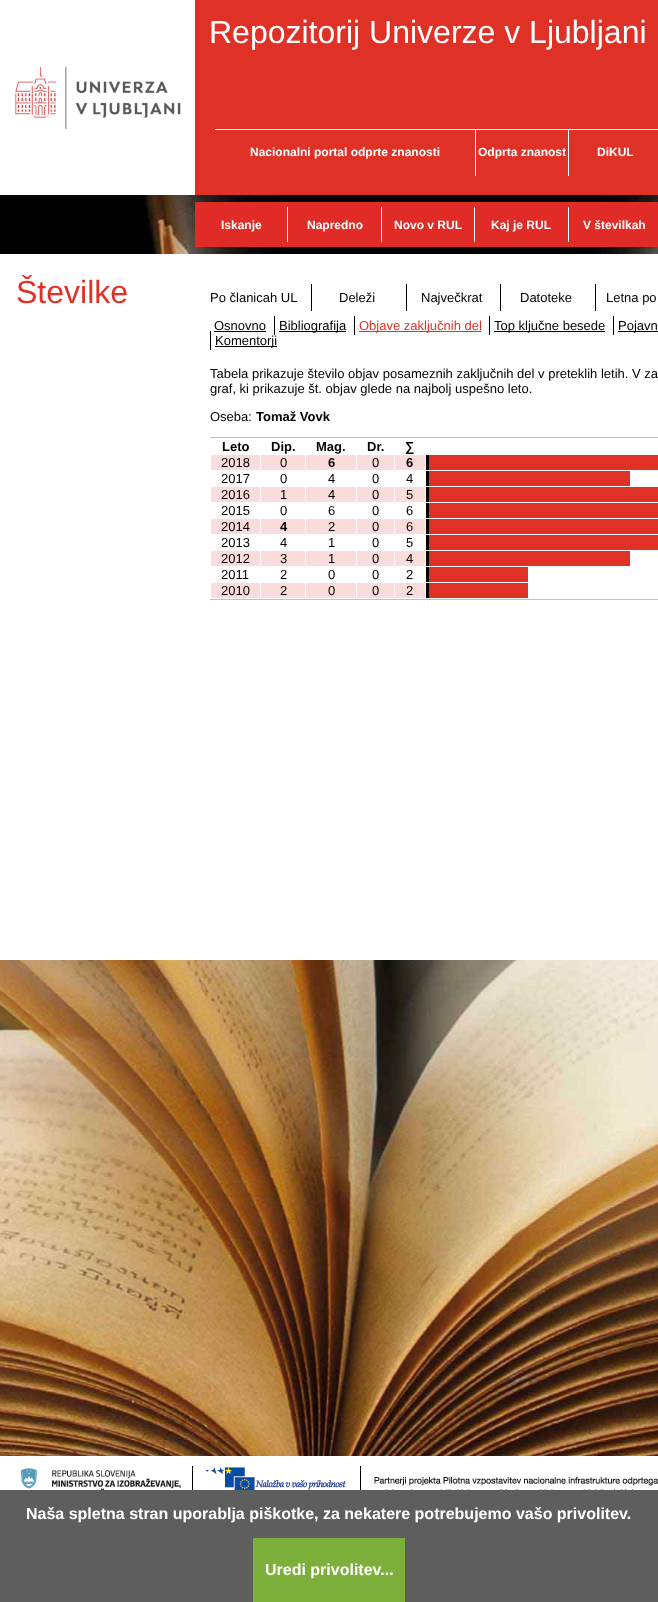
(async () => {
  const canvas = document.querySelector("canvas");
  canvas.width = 658;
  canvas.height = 1602;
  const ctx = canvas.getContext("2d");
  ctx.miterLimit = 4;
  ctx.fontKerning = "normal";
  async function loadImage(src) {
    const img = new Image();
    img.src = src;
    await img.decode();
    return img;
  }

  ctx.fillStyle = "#ffffff";
  ctx.fillRect(0, 0, 658, 1602);
  ctx.drawImage(await loadImage("img/1.png"), 0, 195, 658, 1261);
  ctx.fillStyle = "#e03127";
  ctx.fillRect(195, 0, 463, 195);
  ctx.drawImage(await loadImage("img/2.png"), 15, 66, 166, 63);
  for (const [x, y, w, h, color] of [
    [215, 129, 443, 1, "#ffffff"],
    [475, 129, 1, 47, "#ffffff"],
    [568, 129, 1, 47, "#ffffff"],
    [195, 202, 463, 45, "#e12b26"],
    [287, 207, 1, 35, "#ffffff"],
    [381, 207, 1, 35, "#ffffff"],
    [474, 207, 1, 35, "#ffffff"],
    [568, 207, 1, 35, "#ffffff"],
    [0, 254, 658, 706, "#ffffff"],
    [311, 284, 1, 27, "#000000"],
    [406, 284, 1, 27, "#000000"],
    [500, 284, 1, 27, "#000000"],
    [595, 284, 1, 27, "#000000"],
    [214, 331, 52, 1, "#000000"],
    [274, 316, 1, 19, "#000000"],
    [279, 331, 67, 1, "#000000"],
    [354, 316, 1, 19, "#000000"],
    [359, 331, 122, 1, "#e03127"],
    [489, 316, 1, 19, "#000000"],
    [494, 331, 111, 1, "#000000"],
    [613, 316, 1, 19, "#000000"],
    [618, 331, 40, 1, "#000000"],
    [210, 331, 1, 19, "#000000"],
    [215, 346, 62, 1, "#000000"],
    [210, 437, 448, 1, "#c0c0c0"],
    [210, 599, 448, 1, "#c0c0c0"],
    [211, 455, 49, 15, "#fadcda"],
    [261, 455, 44, 15, "#fadcda"],
    [306, 455, 50, 15, "#fadcda"],
    [357, 455, 37, 15, "#fadcda"],
    [395, 455, 30, 15, "#fadcda"],
    [426, 455, 3, 15, "#000000"],
    [429, 455, 229, 15, "#e03127"],
    [426, 471, 3, 15, "#000000"],
    [429, 471, 201, 15, "#e03127"],
    [211, 487, 49, 15, "#fadcda"],
    [261, 487, 44, 15, "#fadcda"],
    [306, 487, 50, 15, "#fadcda"],
    [357, 487, 37, 15, "#fadcda"],
    [395, 487, 30, 15, "#fadcda"],
    [426, 487, 3, 15, "#000000"],
    [429, 487, 229, 15, "#e03127"],
    [426, 503, 3, 15, "#000000"],
    [429, 503, 229, 15, "#e03127"],
    [211, 519, 49, 15, "#fadcda"],
    [261, 519, 44, 15, "#fadcda"],
    [306, 519, 50, 15, "#fadcda"],
    [357, 519, 37, 15, "#fadcda"],
    [395, 519, 30, 15, "#fadcda"],
    [426, 519, 3, 15, "#000000"],
    [429, 519, 229, 15, "#e03127"],
    [426, 535, 3, 15, "#000000"],
    [429, 535, 229, 15, "#e03127"],
    [211, 551, 49, 15, "#fadcda"],
    [261, 551, 44, 15, "#fadcda"],
    [306, 551, 50, 15, "#fadcda"],
    [357, 551, 37, 15, "#fadcda"],
    [395, 551, 30, 15, "#fadcda"],
    [426, 551, 3, 15, "#000000"],
    [429, 551, 201, 15, "#e03127"],
    [426, 567, 3, 15, "#000000"],
    [429, 567, 99, 15, "#e03127"],
    [211, 583, 49, 15, "#fadcda"],
    [261, 583, 44, 15, "#fadcda"],
    [306, 583, 50, 15, "#fadcda"],
    [357, 583, 37, 15, "#fadcda"],
    [395, 583, 30, 15, "#fadcda"],
    [426, 583, 3, 15, "#000000"],
    [429, 583, 99, 15, "#e03127"],
    [192, 1466, 1, 24, "#000000"],
  ]) {
    ctx.fillStyle = color;
    ctx.fillRect(x, y, w, h);
  }
  ctx.drawImage(await loadImage("img/3.png"), 21, 1468, 160, 22);
  ctx.fillRect(360, 1466, 1, 24);
  ctx.drawImage(await loadImage("img/4.png"), 205, 1467, 143, 23);
  ctx.drawImage(await loadImage("img/5.png"), 374, 1477, 284, 13);
  ctx.fillStyle = "#5e5e5e";
  ctx.fillRect(0, 1490, 658, 112);
  ctx.fillStyle = "#7daf3b";
  ctx.fillRect(253, 1538, 152, 64);
  ctx.font = "32px Liberation Sans";
  ctx.fillStyle = "#ffffff";
  ctx.fillText("Repozitorij Univerze v Ljubljani", 209, 43);
  ctx.font = "bold 12px Liberation Sans";
  for (const [text, x, y] of [
    ["Nacionalni portal odprte znanosti", 250, 156],
    ["Odprta znanost", 478, 156],
    ["DiKUL", 597, 156],
    ["Iskanje", 221, 229],
    ["Napredno", 307, 229],
    ["Novo v RUL", 394, 229],
    ["Kaj je RUL", 491, 229],
    ["V številkah", 583, 229],
  ]) {
    ctx.fillText(text, x, y);
  }
  ctx.font = "32px Liberation Sans";
  ctx.fillStyle = "#e03127";
  ctx.fillText("Številke", 16, 303);
  ctx.font = "13px Liberation Sans";
  ctx.fillStyle = "#000000";
  for (const [text, x, y] of [
    ["Po članicah UL", 210, 302],
    ["Deleži", 339, 302],
    ["Največkrat", 421, 302],
    ["Datoteke", 520, 302],
    ["Letna po", 606, 302],
    ["Osnovno", 214, 330],
    ["Bibliografija", 279, 330],
  ]) {
    ctx.fillText(text, x, y);
  }
  ctx.fillStyle = "#e03127";
  ctx.fillText("Objave zaključnih del", 359, 330);
  ctx.fillStyle = "#000000";
  for (const [text, x, y] of [
    ["Top ključne besede", 494, 330],
    ["Pojavn", 618, 330],
    ["Komentorji", 215, 345],
    ["Tabela prikazuje število objav posameznih zaključnih del v preteklih letih. V za", 210, 378],
    ["graf, ki prikazuje št. objav glede na najbolj uspešno leto.", 210, 393],
    ["Oseba:", 210, 421],
  ]) {
    ctx.fillText(text, x, y);
  }
  ctx.font = "bold 13px Liberation Sans";
  for (const [text, x, y] of [
    ["Tomaž Vovk", 256, 421],
    ["Leto", 222, 451],
    ["Dip.", 271, 451],
    ["Mag.", 316, 451],
    ["Dr.", 367, 451],
    ["∑", 405, 451],
  ]) {
    ctx.fillText(text, x, y);
  }
  ctx.font = "13px Liberation Sans";
  ctx.fillText("2018", 221, 467);
  ctx.fillText("0", 280, 467);
  ctx.font = "bold 13px Liberation Sans";
  ctx.fillText("6", 328, 467);
  ctx.font = "13px Liberation Sans";
  ctx.fillText("0", 372, 467);
  ctx.font = "bold 13px Liberation Sans";
  ctx.fillText("6", 406, 467);
  ctx.font = "13px Liberation Sans";
  for (const [text, x, y] of [
    ["2017", 221, 483],
    ["0", 280, 483],
    ["4", 328, 483],
    ["0", 372, 483],
    ["4", 406, 483],
    ["2016", 221, 499],
    ["1", 280, 499],
    ["4", 328, 499],
    ["0", 372, 499],
    ["5", 406, 499],
    ["2015", 221, 515],
    ["0", 280, 515],
    ["6", 328, 515],
    ["0", 372, 515],
    ["6", 406, 515],
    ["2014", 221, 531],
  ]) {
    ctx.fillText(text, x, y);
  }
  ctx.font = "bold 13px Liberation Sans";
  ctx.fillText("4", 280, 531);
  ctx.font = "13px Liberation Sans";
  for (const [text, x, y] of [
    ["2", 328, 531],
    ["0", 372, 531],
    ["6", 406, 531],
    ["2013", 221, 547],
    ["4", 280, 547],
    ["1", 328, 547],
    ["0", 372, 547],
    ["5", 406, 547],
    ["2012", 221, 563],
    ["3", 280, 563],
    ["1", 328, 563],
    ["0", 372, 563],
    ["4", 406, 563],
    ["2011", 221, 579],
    ["2", 280, 579],
    ["0", 328, 579],
    ["0", 372, 579],
    ["2", 406, 579],
    ["2010", 221, 595],
    ["2", 280, 595],
    ["0", 328, 595],
    ["0", 372, 595],
    ["2", 406, 595],
  ]) {
    ctx.fillText(text, x, y);
  }
  ctx.font = "bold 16px Liberation Sans";
  ctx.fillStyle = "#ffffff";
  ctx.fillText("Naša spletna stran uporablja piškotke, za nekatere potrebujemo vašo privolitev.", 26, 1519);
  ctx.fillText("Uredi privolitev...", 265, 1575);
})();
